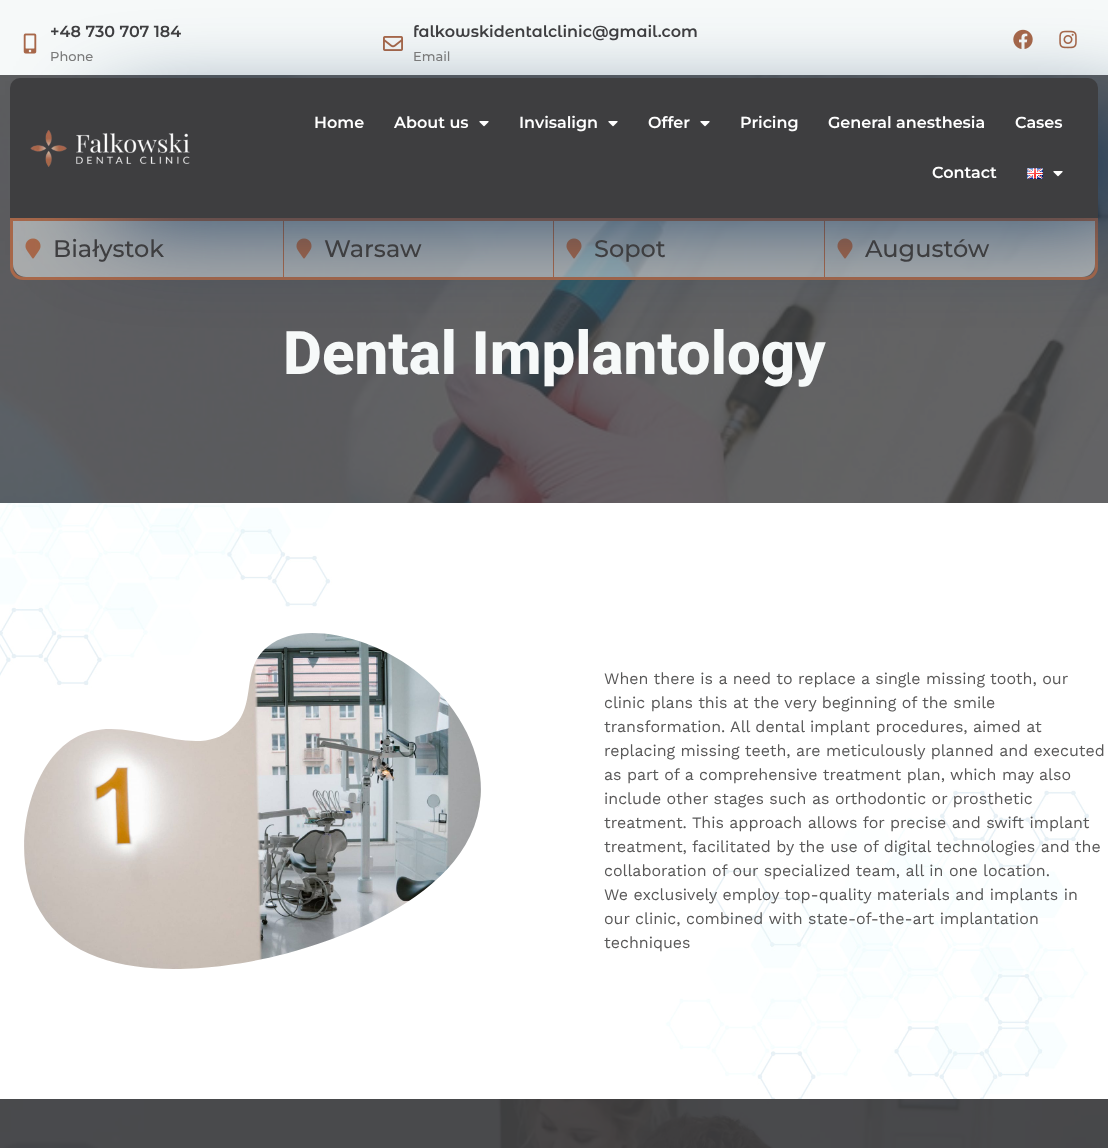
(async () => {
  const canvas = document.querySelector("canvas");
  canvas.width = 1108;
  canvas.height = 1148;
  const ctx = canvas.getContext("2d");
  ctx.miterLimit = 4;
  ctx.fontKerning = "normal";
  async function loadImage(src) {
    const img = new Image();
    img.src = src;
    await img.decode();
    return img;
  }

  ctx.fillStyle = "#f6f9f9";
  ctx.fillRect(0, 0, 1108, 1148);
  ctx.drawImage(await loadImage("img/1.png"), 23, 33, 14, 21);
  ctx.drawImage(await loadImage("img/2.png"), 383, 36, 20, 15);
  ctx.drawImage(await loadImage("img/3.png"), 1013, 29, 20, 20);
  ctx.drawImage(await loadImage("img/4.png"), 1059, 30, 18, 19);
  ctx.drawImage(await loadImage("img/12.png"), 0, 75, 1108, 428);
  ctx.beginPath();
  ctx.roundRect(11.5, 219.5, 1085, 59, [0, 0, 11.5, 11.5]);
  ctx.strokeStyle = "#a8684a";
  ctx.lineWidth = 3;
  ctx.stroke();
  ctx.fillStyle = "rgba(246, 249, 249, 0.5)";
  ctx.beginPath();
  ctx.roundRect(13, 221, 1082, 56, [0, 0, 13, 13]);
  ctx.fill();
  ctx.fillStyle = "#a8684a";
  ctx.fillRect(283, 221, 1, 56);
  ctx.drawImage(await loadImage("img/8.png"), 25, 238, 16, 21);
  ctx.fillRect(553, 221, 1, 56);
  ctx.drawImage(await loadImage("img/9.png"), 296, 238, 16, 21);
  ctx.fillRect(824, 221, 1, 56);
  ctx.drawImage(await loadImage("img/10.png"), 566, 238, 16, 21);
  ctx.drawImage(await loadImage("img/11.png"), 837, 238, 16, 21);
  ctx.fillStyle = "#032a53";
  ctx.filter = "blur(50px)";
  ctx.beginPath();
  ctx.rect(110, 128, 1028, 80);
  ctx.fill();
  ctx.filter = "none";
  ctx.fillStyle = "#3e3e40";
  ctx.beginPath();
  ctx.roundRect(10, 78, 1088, 140, [10, 10, 0, 0]);
  ctx.fill();
  ctx.drawImage(await loadImage("img/5.png"), 30, 130, 160, 37);
  ctx.drawImage(await loadImage("img/6.png"), 479, 121, 10, 6);
  ctx.drawImage(await loadImage("img/6.png"), 608, 121, 10, 6);
  ctx.drawImage(await loadImage("img/6.png"), 700, 121, 10, 6);
  ctx.drawImage(await loadImage("img/7.png"), 1027, 168, 16, 11);
  ctx.drawImage(await loadImage("img/6.png"), 1053, 171, 10, 6);
  ctx.fillStyle = "#ffffff";
  ctx.fillRect(0, 503, 1108, 596);
  ctx.drawImage(await loadImage("img/13.png"), 0, 503, 1089, 596);
  ctx.drawImage(await loadImage("img/14.png"), 24, 633, 457, 336);
  ctx.drawImage(await loadImage("img/15.png"), 0, 1099, 1108, 49);
  ctx.font = "600 16px Montserrat Alternates";
  ctx.fillStyle = "#3e3e40";
  ctx.fillText("+48 730 707 184", 50, 37);
  ctx.font = "500 13px Montserrat";
  ctx.fillStyle = "#7a7a7a";
  ctx.fillText("Phone", 50, 61);
  ctx.font = "600 16px Montserrat Alternates";
  ctx.fillStyle = "#3e3e40";
  ctx.fillText("falkowskidentalclinic@gmail.com", 413, 37);
  ctx.font = "500 13px Montserrat";
  ctx.fillStyle = "#7a7a7a";
  ctx.fillText("Email", 413, 61);
  ctx.font = "600 16px Montserrat";
  ctx.fillStyle = "#ffffff";
  for (const [text, x, y] of [
    ["Home", 314, 128],
    ["About us", 394, 128],
    ["Invisalign", 519, 128],
    ["Offer", 648, 128],
    ["Pricing", 740, 128],
    ["General anesthesia", 828, 128],
    ["Cases", 1015, 128],
    ["Contact", 932, 178],
  ]) {
    ctx.fillText(text, x, y);
  }
  ctx.font = "500 24px Montserrat";
  ctx.fillStyle = "#3e3e40";
  for (const [text, x, y] of [
    ["Białystok", 53, 257],
    ["Warsaw", 324, 257],
    ["Sopot", 594, 257],
    ["Augustów", 865, 257],
  ]) {
    ctx.fillText(text, x, y);
  }
  ctx.font = "800 60px Roboto";
  ctx.fillStyle = "#f6f9f9";
  ctx.fillText("Dental Implantology", 283, 374);
  ctx.font = "16px Work Sans";
  ctx.fillStyle = "#595858";
  for (const [text, x, y] of [
    ["When there is a need to replace a single missing tooth, our", 604, 684],
    ["clinic plans this at the very beginning of the smile", 604, 708],
    ["transformation. All dental implant procedures, aimed at", 604, 732],
    ["replacing missing teeth, are meticulously planned and executed", 604, 756],
    ["as part of a comprehensive treatment plan, which may also", 604, 780],
    ["include other stages such as orthodontic or prosthetic", 604, 804],
    ["treatment. This approach allows for precise and swift implant", 604, 828],
    ["treatment, facilitated by the use of digital technologies and the", 604, 852],
    ["collaboration of our specialized team, all in one location.", 604, 876],
    ["We exclusively employ top-quality materials and implants in", 604, 900],
    ["our clinic, combined with state-of-the-art implantation", 604, 924],
    ["techniques", 604, 948],
  ]) {
    ctx.fillText(text, x, y);
  }
})();
